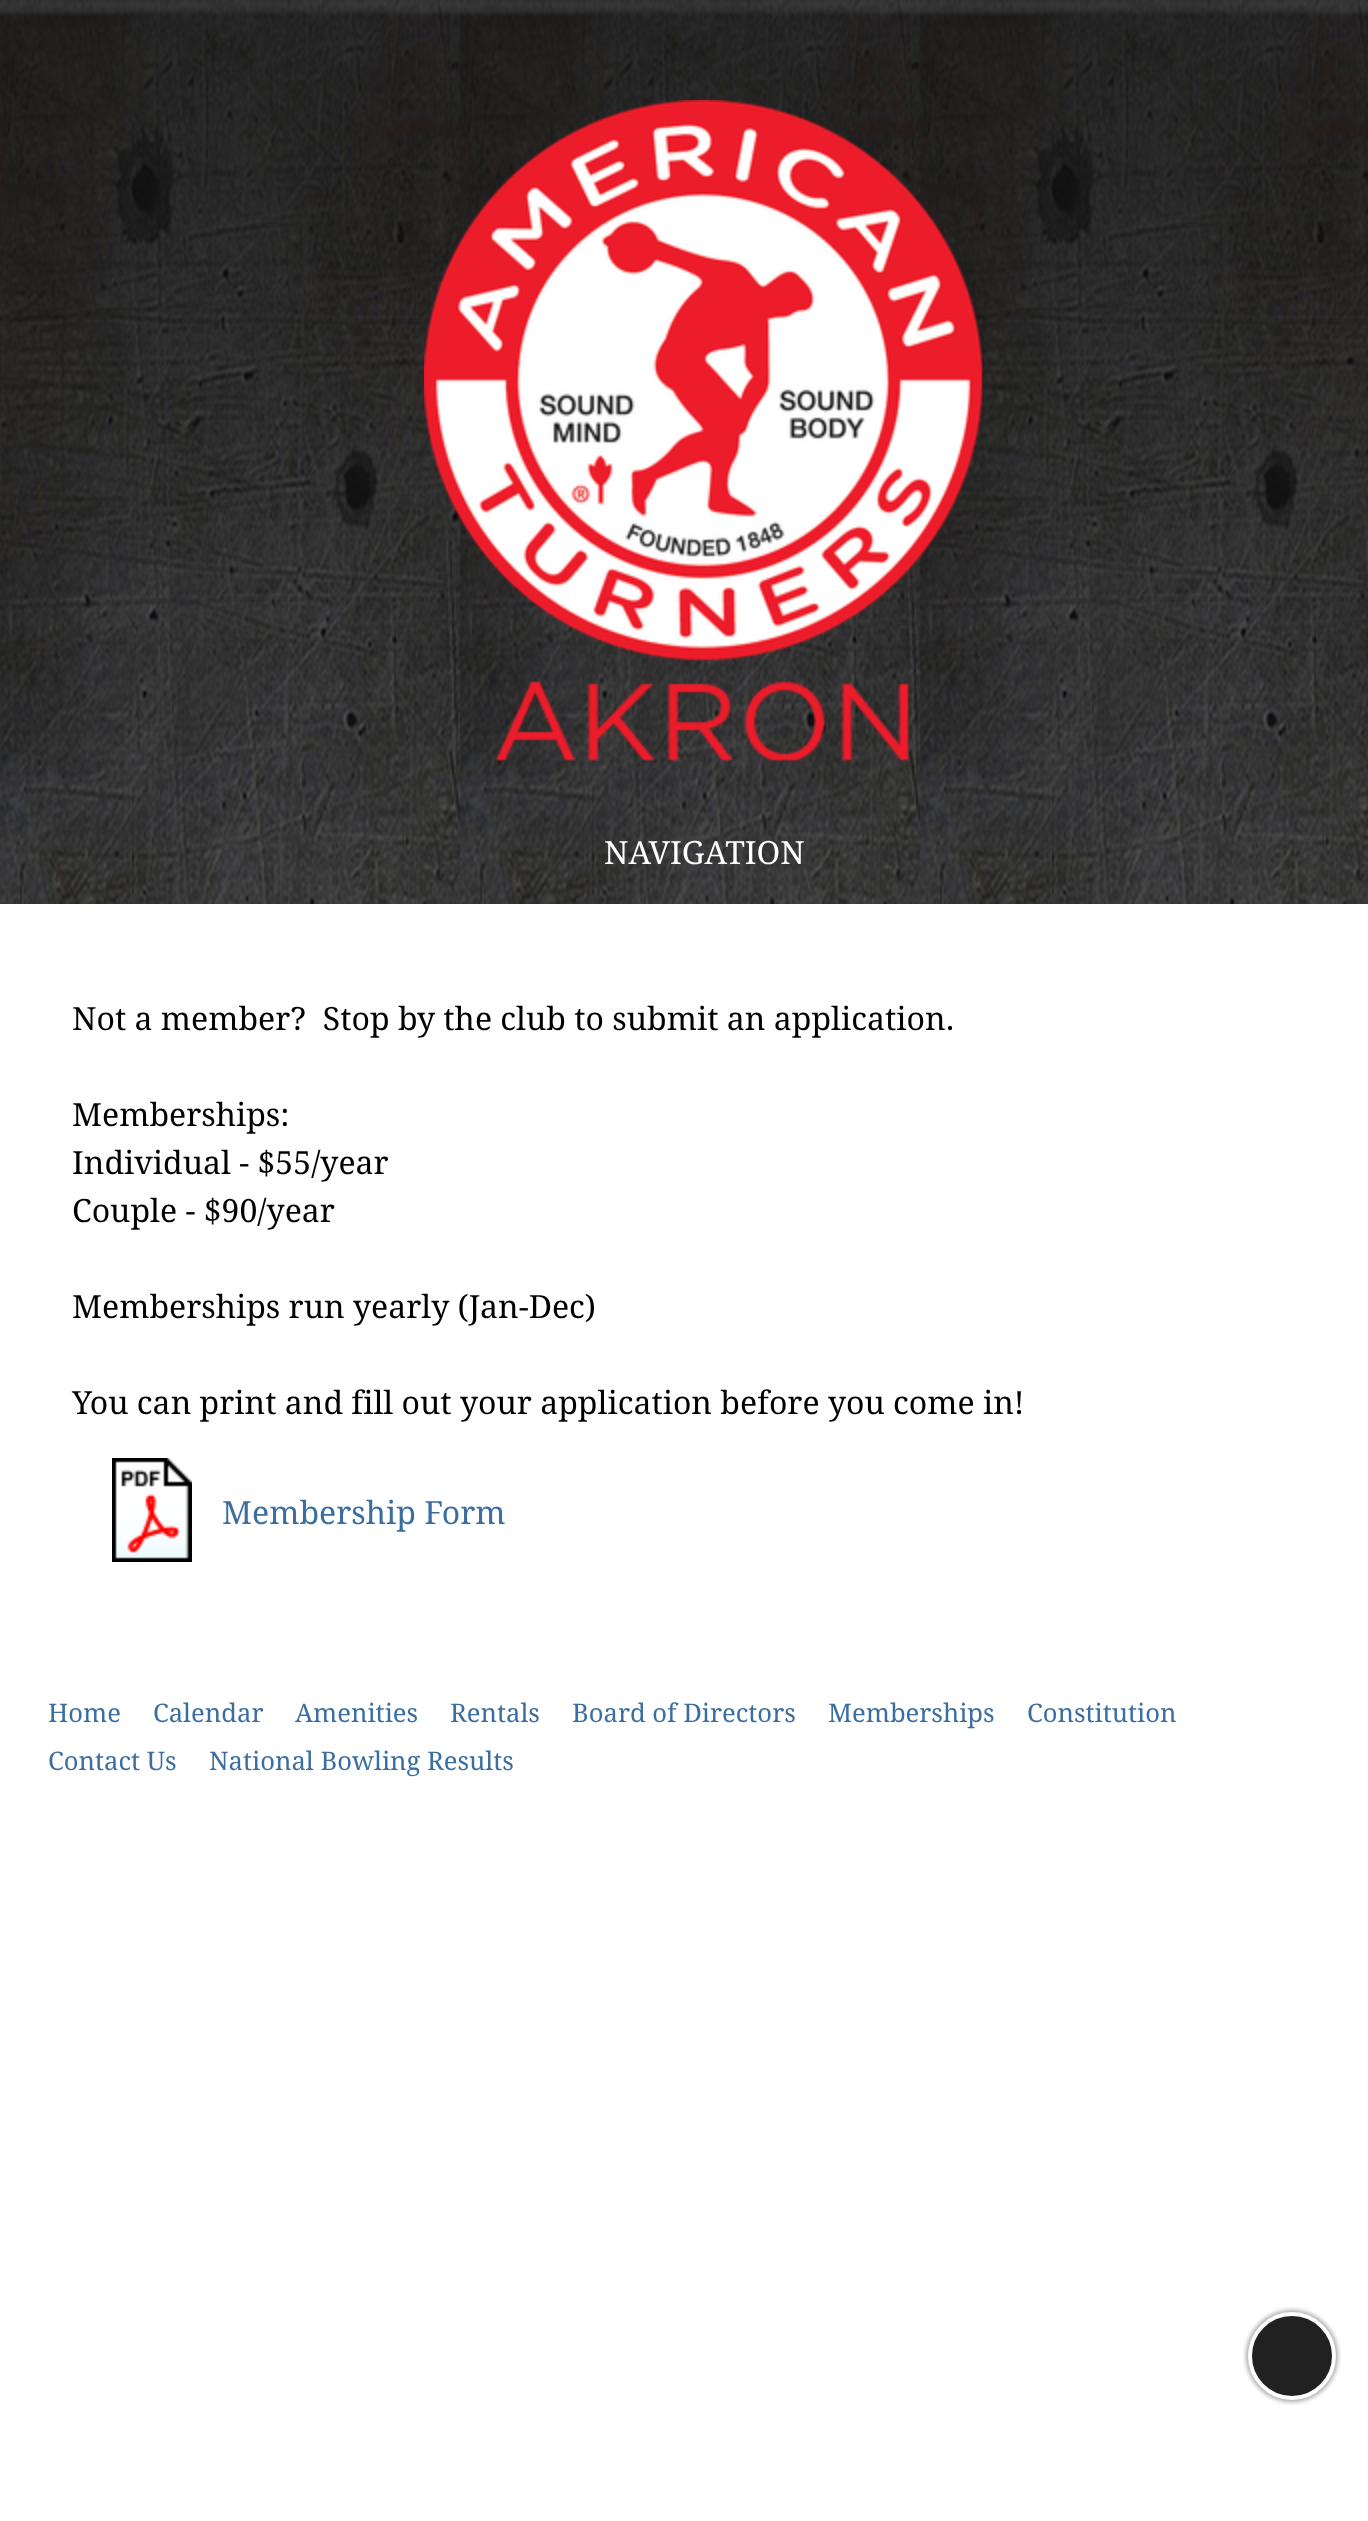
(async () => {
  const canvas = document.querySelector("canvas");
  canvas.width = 1368;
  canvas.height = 2521;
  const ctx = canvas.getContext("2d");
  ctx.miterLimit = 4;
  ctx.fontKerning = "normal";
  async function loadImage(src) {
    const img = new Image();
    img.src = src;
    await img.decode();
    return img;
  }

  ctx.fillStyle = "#ffffff";
  ctx.fillRect(0, 0, 1368, 2521);
  ctx.drawImage(await loadImage("img/1.png"), 0, 0, 1368, 904);
  ctx.drawImage(await loadImage("img/2.png"), 424, 100, 559, 661);
  ctx.drawImage(await loadImage("img/3.png"), 112, 1458, 80, 104);
  ctx.fillStyle = "#aaaaaa";
  ctx.filter = "blur(2px)";
  ctx.beginPath();
  ctx.roundRect(1246, 2310, 92, 92, 46);
  ctx.fill();
  ctx.filter = "none";
  ctx.fillStyle = "#212121";
  ctx.beginPath();
  ctx.arc(1292, 2356, 42, 0, Math.PI * 2);
  ctx.fill();
  ctx.strokeStyle = "#ffffff";
  ctx.lineWidth = 4;
  ctx.stroke();
  ctx.font = "32px Droid Serif";
  ctx.fillStyle = "#ffffff";
  ctx.fillText("NAVIGATION", 604, 864);
  ctx.fillStyle = "#000000";
  for (const [text, x, y] of [
    ["Not a member?  Stop by the club to submit an application.", 72, 1030],
    ["Memberships:", 72, 1126],
    ["Individual - $55/year", 72, 1174],
    ["Couple - $90/year", 72, 1222],
    ["Memberships run yearly (Jan-Dec)", 72, 1318],
    ["You can print and fill out your application before you come in!", 72, 1414],
  ]) {
    ctx.fillText(text, x, y);
  }
  ctx.fillStyle = "#3a6ea3";
  ctx.fillText("Membership Form", 222, 1524);
  ctx.font = "25.6px Droid Serif";
  for (const [text, x, y] of [
    ["Home", 48, 1722],
    ["Calendar", 153, 1722],
    ["Amenities", 295, 1722],
    ["Rentals", 450, 1722],
    ["Board of Directors", 572, 1722],
    ["Memberships", 828, 1722],
    ["Constitution", 1027, 1722],
    ["Contact Us", 48, 1770],
    ["National Bowling Results", 209, 1770],
  ]) {
    ctx.fillText(text, x, y);
  }
})();
